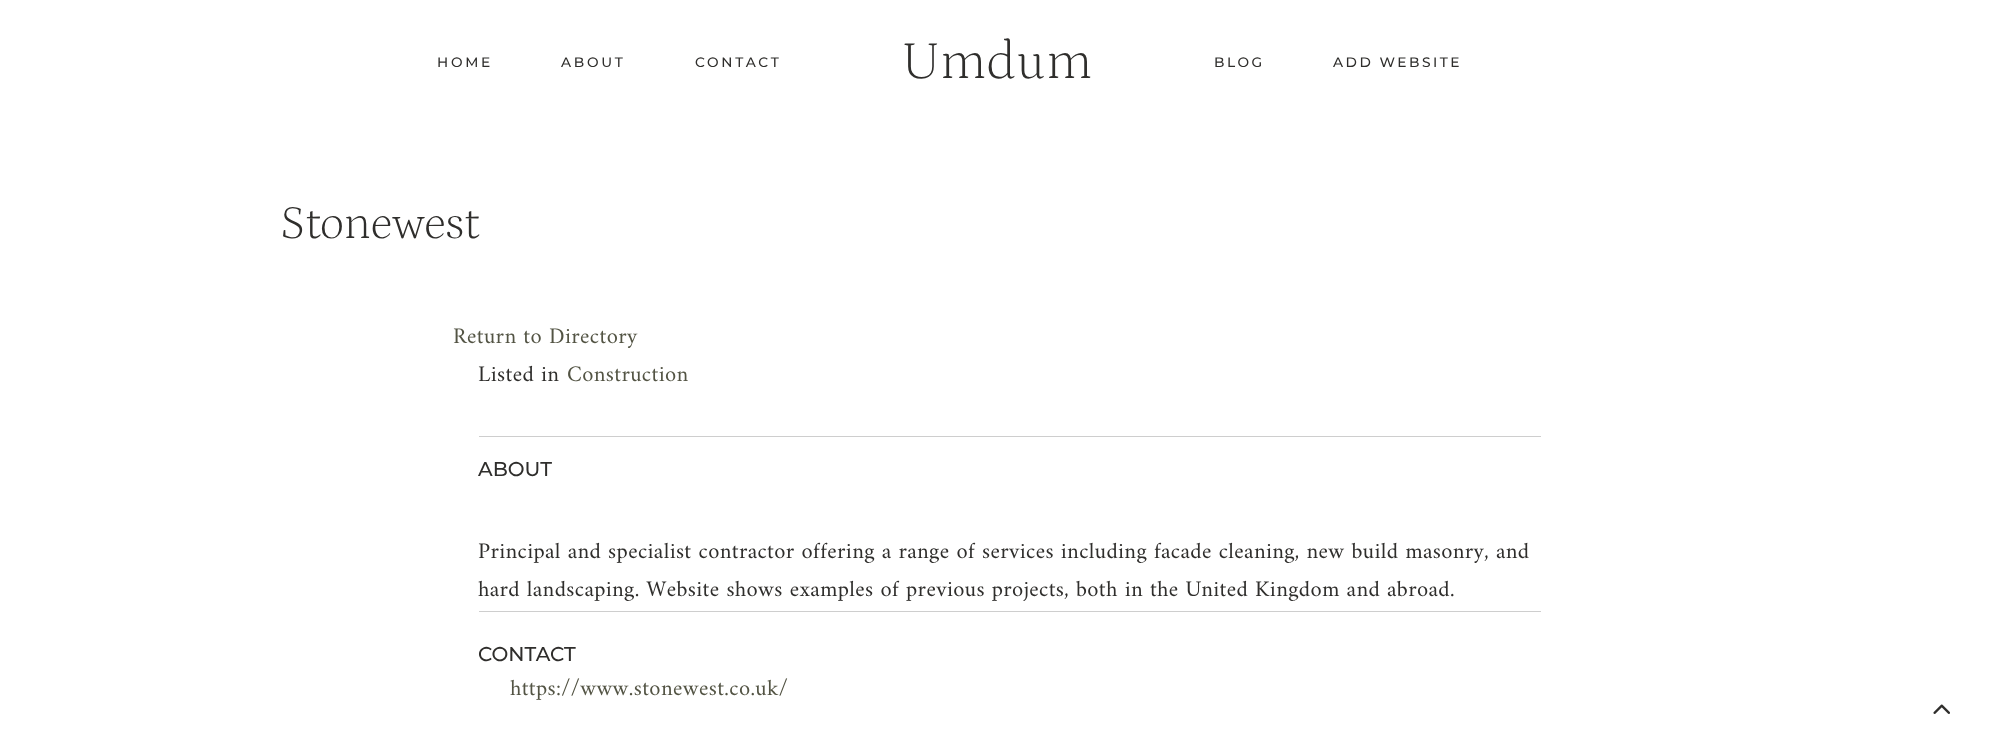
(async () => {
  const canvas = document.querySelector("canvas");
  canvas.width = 1994;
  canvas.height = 753;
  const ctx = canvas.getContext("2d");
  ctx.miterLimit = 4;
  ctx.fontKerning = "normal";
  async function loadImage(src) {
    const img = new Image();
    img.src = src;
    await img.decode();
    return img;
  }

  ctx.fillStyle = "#ffffff";
  ctx.fillRect(0, 0, 1994, 753);
  ctx.fillStyle = "#cecece";
  ctx.fillRect(479, 436, 1062, 1);
  ctx.fillRect(479, 611, 1062, 1);
  ctx.drawImage(await loadImage("img/1.png"), 1933, 704, 17, 10);
  ctx.letterSpacing = "2.75px";
  ctx.font = "100 13.75px Montserrat";
  ctx.fillStyle = "#2f2e2c";
  for (const [text, x, y] of [
    ["HOME", 437, 67],
    ["ABOUT", 561, 67],
    ["CONTACT", 695, 67],
  ]) {
    ctx.fillText(text, x, y);
  }
  ctx.letterSpacing = "0.5px";
  ctx.font = "200 54px Petrona";
  ctx.fillText("Umdum", 902, 78);
  ctx.letterSpacing = "2.5px";
  ctx.font = "100 13.75px Montserrat";
  ctx.fillText("BLOG", 1214, 67);
  ctx.fillText("ADD WEBSITE", 1333, 67);
  ctx.letterSpacing = "0px";
  ctx.font = "200 47.5px Petrona";
  ctx.fillText("Stonewest", 280, 238);
  ctx.letterSpacing = "0.36px";
  ctx.font = "22.5px Amiri";
  ctx.fillStyle = "#535444";
  ctx.fillText("Return to Directory", 453, 343);
  ctx.fillStyle = "#2f2e2c";
  ctx.fillText("Listed in", 478, 381);
  ctx.fillStyle = "#535444";
  ctx.fillText("Construction", 567, 381);
  ctx.letterSpacing = "0px";
  ctx.font = "100 20px Montserrat";
  ctx.fillStyle = "#2f2e2c";
  ctx.fillText("ABOUT", 478, 476);
  ctx.letterSpacing = "0.36px";
  ctx.font = "22.5px Amiri";
  ctx.fillText("Principal and specialist contractor offering a range of services including facade cleaning, new build masonry, and", 478, 558);
  ctx.fillText("hard landscaping. Website shows examples of previous projects, both in the United Kingdom and abroad.", 478, 596);
  ctx.letterSpacing = "0px";
  ctx.font = "100 20px Montserrat";
  ctx.fillText("CONTACT", 478, 661);
  ctx.letterSpacing = "0.36px";
  ctx.font = "22.5px Amiri";
  ctx.fillStyle = "#535444";
  ctx.fillText("https://www.stonewest.co.uk/", 510, 695);
})();
